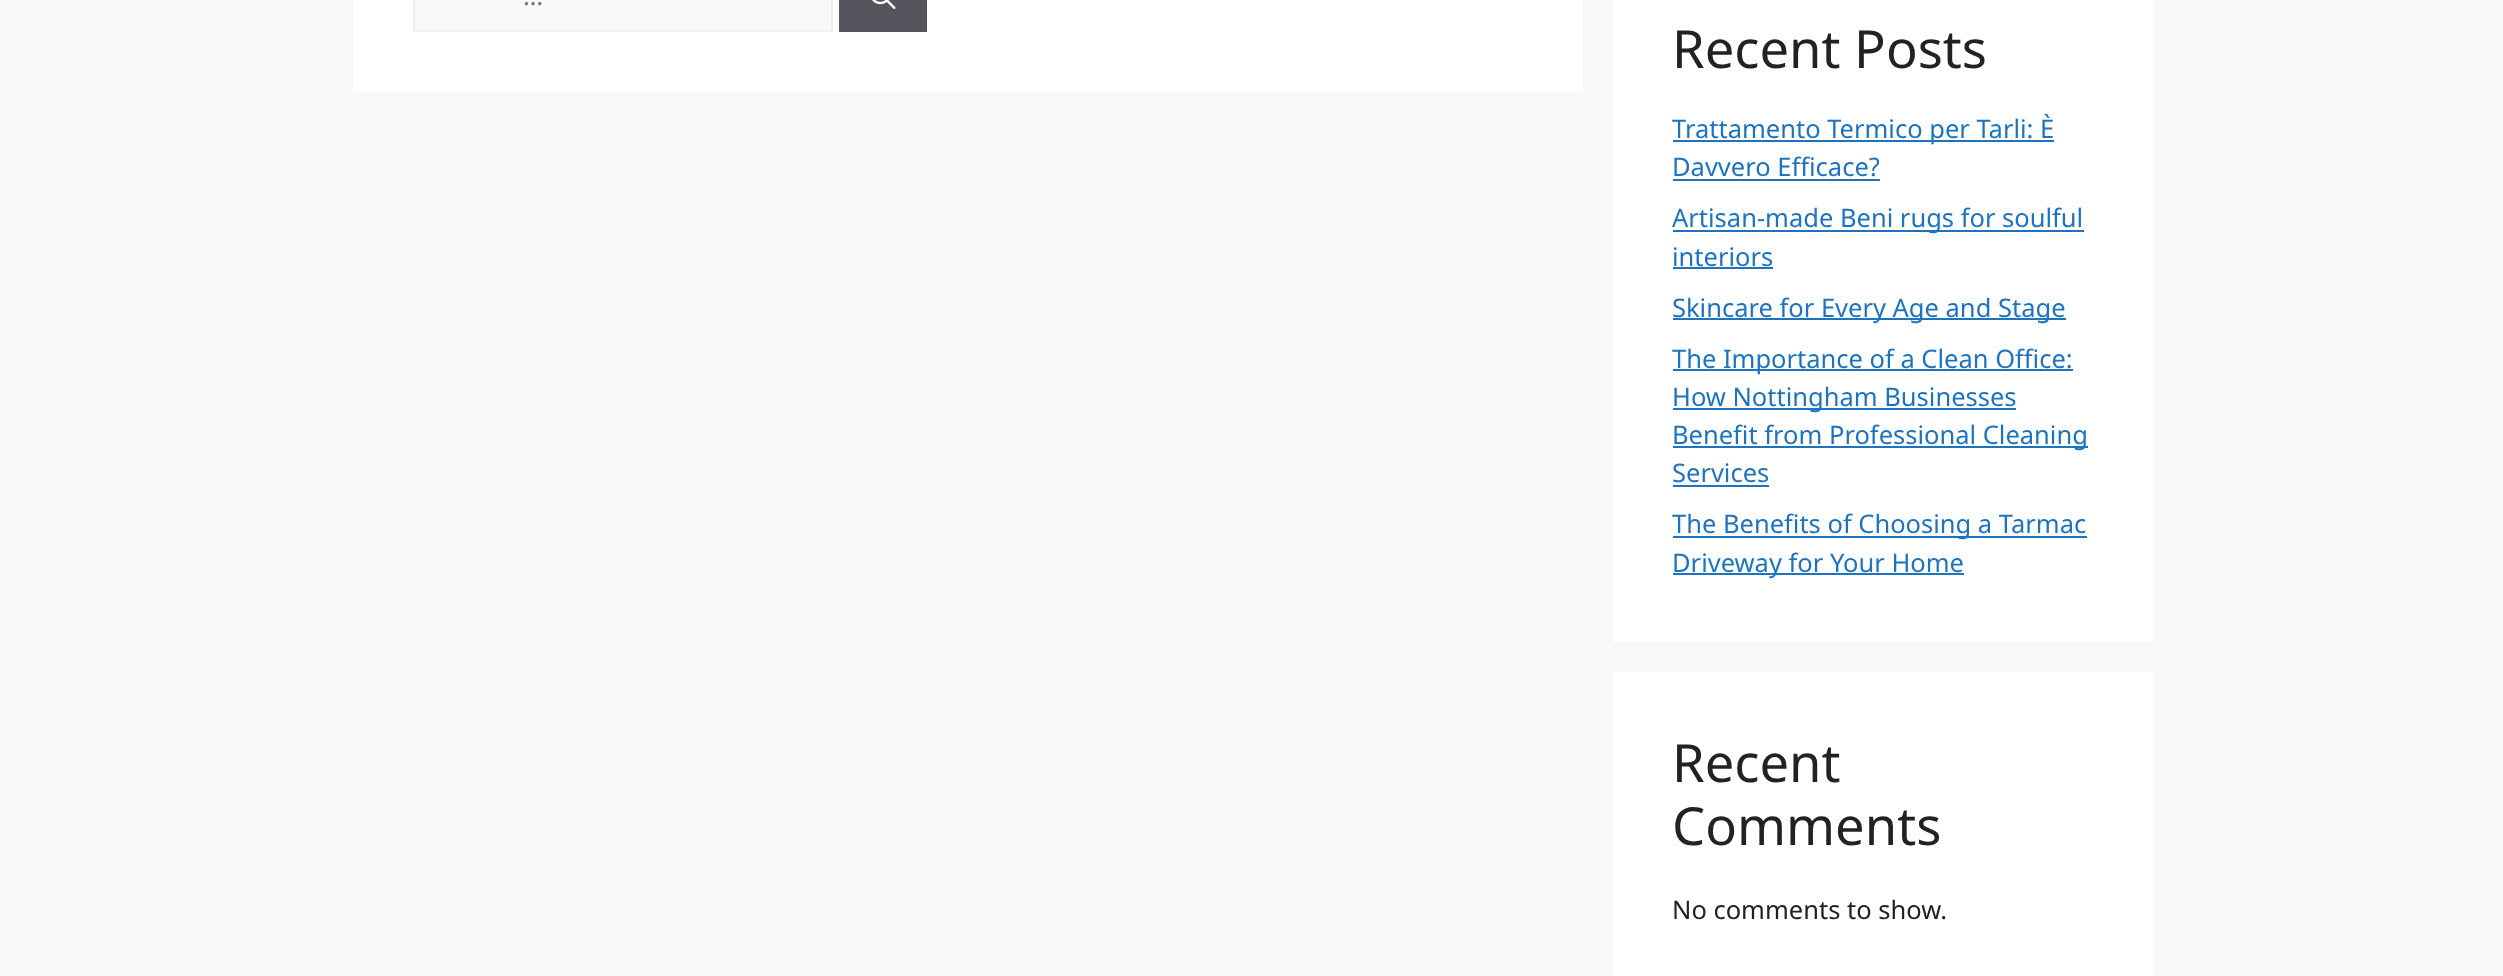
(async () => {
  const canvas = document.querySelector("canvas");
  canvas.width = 2503;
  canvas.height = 976;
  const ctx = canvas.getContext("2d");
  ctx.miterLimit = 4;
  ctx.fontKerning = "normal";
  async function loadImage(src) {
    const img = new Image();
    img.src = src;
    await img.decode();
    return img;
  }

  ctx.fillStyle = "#f7f8f9";
  ctx.fillRect(0, 0, 2503, 976);
  ctx.fillStyle = "#ffffff";
  ctx.fillRect(353, 0, 1230, 92);
  ctx.fillStyle = "#f7f8f9";
  ctx.beginPath();
  ctx.rect(414, -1, 418, 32);
  ctx.fill();
  ctx.strokeStyle = "#f0f0f0";
  ctx.lineWidth = 2;
  ctx.stroke();
  ctx.fillStyle = "#55555e";
  ctx.fillRect(839, 0, 88, 32);
  ctx.drawImage(await loadImage("img/1.png"), 872, 0, 24, 9);
  for (const [x, y, w, h, color] of [
    [1613, 0, 540, 642, "#ffffff"],
    [1673, 140, 381, 2, "#1e73be"],
    [1673, 179, 207, 2, "#1e73be"],
    [1673, 230, 411, 2, "#1e73be"],
    [1673, 267, 100, 2, "#1e73be"],
    [1673, 318, 393, 2, "#1e73be"],
    [1673, 369, 400, 2, "#1e73be"],
    [1673, 408, 343, 2, "#1e73be"],
    [1673, 446, 415, 2, "#1e73be"],
    [1673, 485, 96, 2, "#1e73be"],
    [1673, 536, 414, 2, "#1e73be"],
    [1673, 573, 291, 2, "#1e73be"],
    [1613, 672, 540, 304, "#ffffff"],
  ]) {
    ctx.fillStyle = color;
    ctx.fillRect(x, y, w, h);
  }
  ctx.font = "25.5px Noto Sans";
  ctx.fillStyle = "#757575";
  ctx.fillText("…", 523, 5);
  ctx.font = "52.5px Noto Sans";
  ctx.fillStyle = "#222222";
  ctx.fillText("Recent Posts", 1672, 68);
  ctx.font = "25.5px Noto Sans";
  ctx.fillStyle = "#1e73be";
  for (const [text, x, y] of [
    ["Trattamento Termico per Tarli: È", 1672, 138],
    ["Davvero Efficace?", 1672, 176],
    ["Artisan-made Beni rugs for soulful", 1672, 227],
    ["interiors", 1672, 266],
    ["Skincare for Every Age and Stage", 1672, 317],
    ["The Importance of a Clean Office:", 1672, 368],
    ["How Nottingham Businesses", 1672, 406],
    ["Benefit from Professional Cleaning", 1672, 444],
    ["Services", 1672, 482],
    ["The Benefits of Choosing a Tarmac", 1672, 533],
    ["Driveway for Your Home", 1672, 572],
  ]) {
    ctx.fillText(text, x, y);
  }
  ctx.font = "52.5px Noto Sans";
  ctx.fillStyle = "#222222";
  ctx.fillText("Recent", 1672, 782);
  ctx.fillText("Comments", 1672, 845);
  ctx.font = "25.5px Noto Sans";
  ctx.fillText("No comments to show.", 1672, 919);
})();
